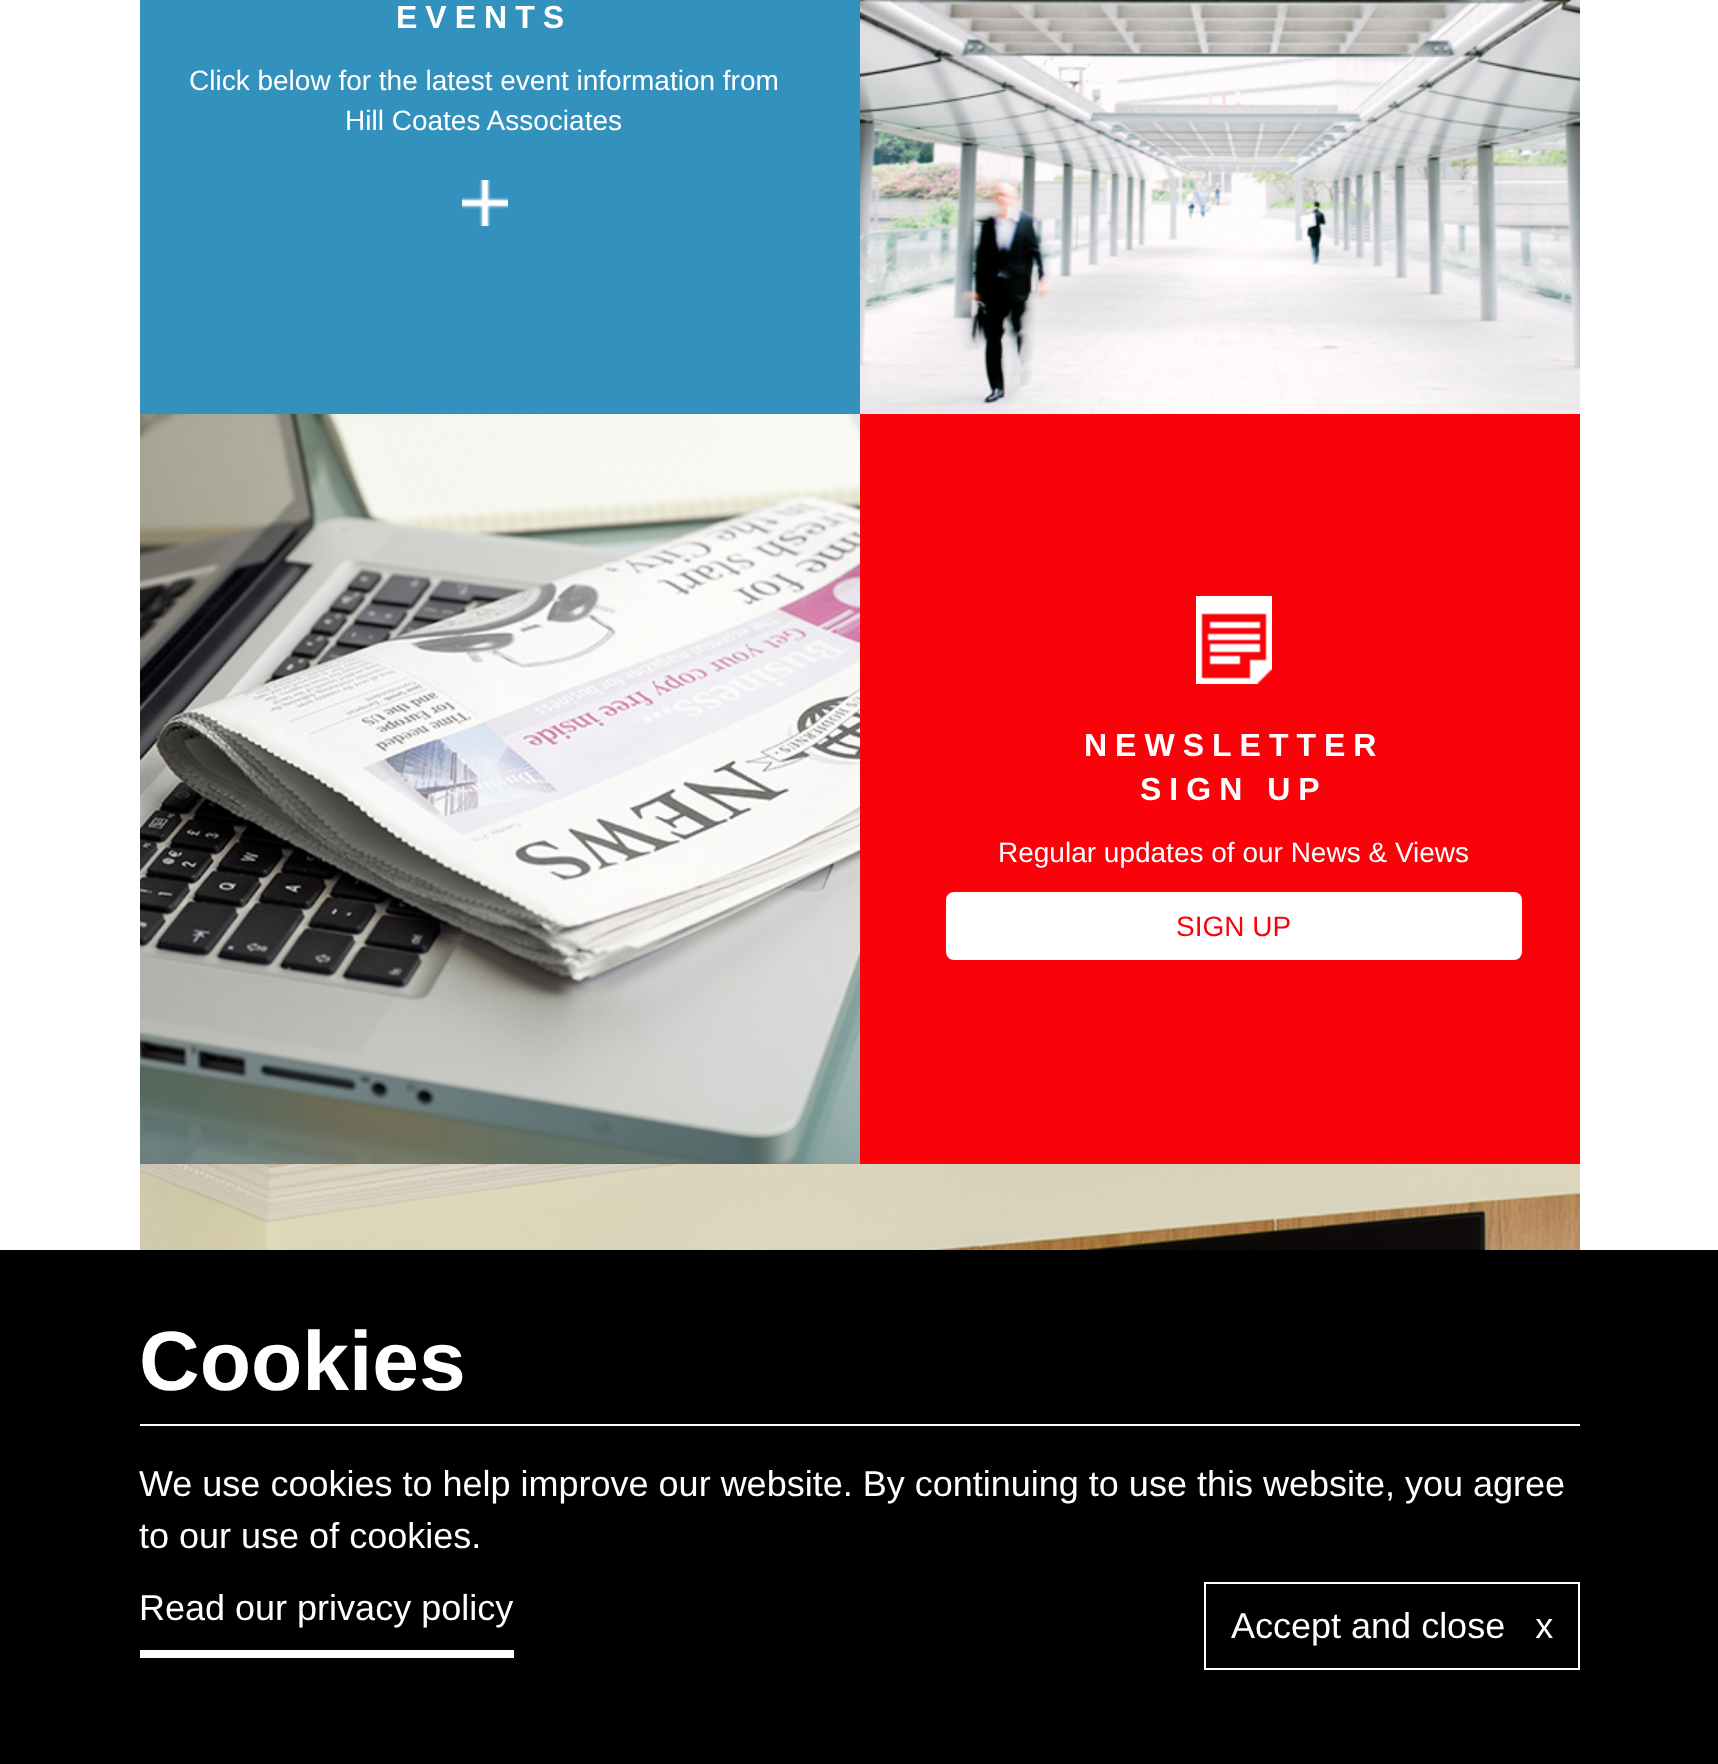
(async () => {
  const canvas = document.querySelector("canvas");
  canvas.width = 1718;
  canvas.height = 1764;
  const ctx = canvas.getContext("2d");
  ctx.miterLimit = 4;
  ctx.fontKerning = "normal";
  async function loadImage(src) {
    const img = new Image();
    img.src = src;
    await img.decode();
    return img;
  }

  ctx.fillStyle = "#ffffff";
  ctx.fillRect(0, 0, 1718, 1764);
  ctx.fillStyle = "#3391be";
  ctx.fillRect(140, 0, 720, 414);
  ctx.drawImage(await loadImage("img/1.png"), 462, 180, 46, 46);
  ctx.drawImage(await loadImage("img/2.png"), 860, 0, 720, 414);
  ctx.drawImage(await loadImage("img/3.png"), 140, 414, 720, 750);
  ctx.fillStyle = "#f9020a";
  ctx.fillRect(860, 414, 720, 750);
  ctx.drawImage(await loadImage("img/4.png"), 1196, 596, 76, 88);
  ctx.fillStyle = "#ffffff";
  ctx.beginPath();
  ctx.roundRect(946, 892, 576, 68, 8);
  ctx.fill();
  ctx.drawImage(await loadImage("img/5.png"), 140, 1164, 1440, 86);
  for (const [x, y, w, h, color] of [
    [0, 1250, 1718, 514, "#000000"],
    [140, 1424, 1440, 2, "#ffffff"],
    [140, 1650, 374, 8, "#ffffff"],
  ]) {
    ctx.fillStyle = color;
    ctx.fillRect(x, y, w, h);
  }
  ctx.strokeStyle = "#ffffff";
  ctx.lineWidth = 2;
  ctx.strokeRect(1205, 1583, 374, 86);
  ctx.letterSpacing = "8px";
  ctx.font = "bold 32px Liberation Sans";
  ctx.fillText("EVENTS", 396, 28);
  ctx.letterSpacing = "0px";
  ctx.font = "28px Liberation Sans";
  ctx.fillText("Click below for the latest event information from", 189, 90);
  ctx.fillText("Hill Coates Associates", 345, 130);
  ctx.letterSpacing = "8px";
  ctx.font = "bold 32px Liberation Sans";
  ctx.fillText("NEWSLETTER", 1084, 756);
  ctx.fillText("SIGN UP", 1140, 800);
  ctx.letterSpacing = "0px";
  ctx.font = "28px Liberation Sans";
  ctx.fillText("Regular updates of our News & Views", 998, 862);
  ctx.fillStyle = "#f9020a";
  ctx.fillText("SIGN UP", 1176, 936);
  ctx.font = "bold 84px Liberation Sans";
  ctx.fillStyle = "#ffffff";
  ctx.fillText("Cookies", 139, 1390);
  ctx.font = "36px Liberation Sans";
  for (const [text, x, y] of [
    ["We use cookies to help improve our website. By continuing to use this website, you agree", 139, 1496],
    ["to our use of cookies.", 139, 1548],
    ["Read our privacy policy", 139, 1620],
    ["Accept and close   x", 1231, 1638],
  ]) {
    ctx.fillText(text, x, y);
  }
})();
